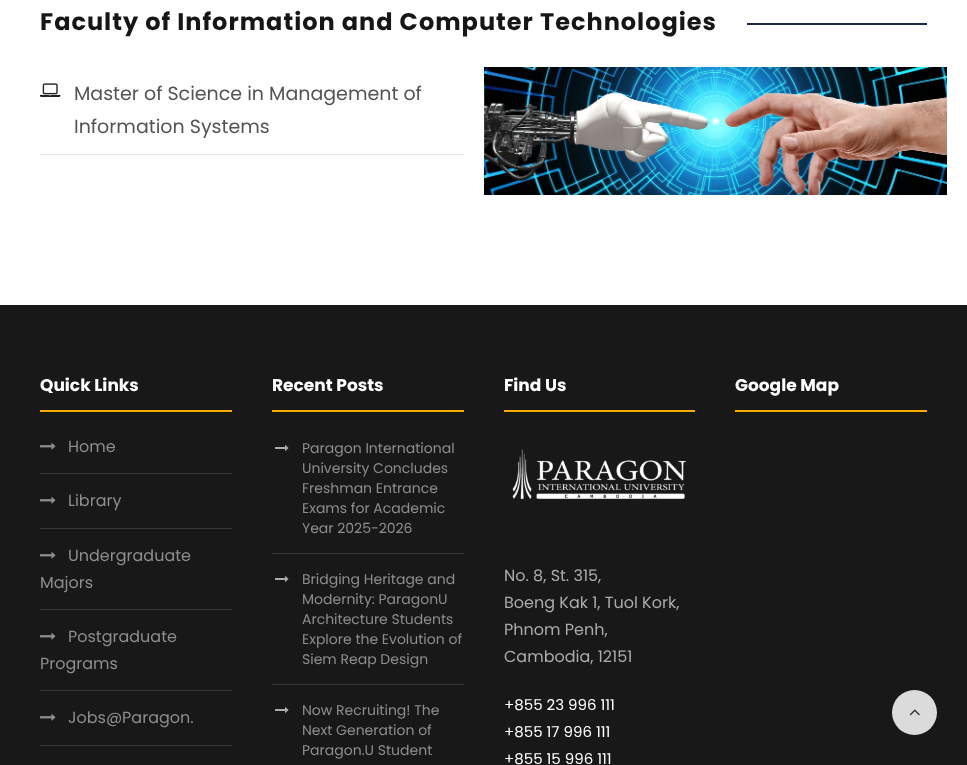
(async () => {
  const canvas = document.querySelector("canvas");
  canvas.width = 967;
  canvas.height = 765;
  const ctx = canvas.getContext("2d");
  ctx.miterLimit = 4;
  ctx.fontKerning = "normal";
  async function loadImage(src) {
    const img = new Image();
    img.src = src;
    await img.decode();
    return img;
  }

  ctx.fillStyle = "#ffffff";
  ctx.fillRect(0, 0, 967, 765);
  ctx.fillStyle = "#1b2945";
  ctx.fillRect(747, 23, 180, 2);
  ctx.fillStyle = "#e6e6e6";
  ctx.fillRect(40, 154, 424, 1);
  ctx.drawImage(await loadImage("img/1.png"), 40, 83, 21, 14);
  ctx.drawImage(await loadImage("img/2.png"), 484, 67, 463, 128);
  for (const [x, y, w, h, color] of [
    [0, 305, 967, 460, "#181818"],
    [40, 410, 192, 2, "#ffae00"],
    [40, 473, 192, 1, "#363636"],
  ]) {
    ctx.fillStyle = color;
    ctx.fillRect(x, y, w, h);
  }
  ctx.drawImage(await loadImage("img/3.png"), 40, 442, 16, 8);
  ctx.fillRect(40, 528, 192, 1);
  ctx.drawImage(await loadImage("img/3.png"), 40, 496, 16, 8);
  ctx.fillRect(40, 609, 192, 1);
  ctx.drawImage(await loadImage("img/3.png"), 40, 551, 16, 8);
  ctx.fillRect(40, 690, 192, 1);
  ctx.drawImage(await loadImage("img/3.png"), 40, 632, 16, 8);
  ctx.fillRect(40, 745, 192, 1);
  ctx.drawImage(await loadImage("img/3.png"), 40, 713, 16, 8);
  ctx.fillStyle = "#ffae00";
  ctx.fillRect(272, 410, 192, 2);
  ctx.fillStyle = "#363636";
  ctx.fillRect(272, 553, 192, 1);
  ctx.drawImage(await loadImage("img/4.png"), 275, 445, 14, 6);
  ctx.fillRect(272, 684, 192, 1);
  ctx.drawImage(await loadImage("img/4.png"), 275, 576, 14, 6);
  ctx.drawImage(await loadImage("img/4.png"), 275, 707, 14, 6);
  ctx.fillStyle = "#ffae00";
  ctx.fillRect(504, 410, 191, 2);
  ctx.drawImage(await loadImage("img/5.png"), 512, 449, 175, 51);
  ctx.fillRect(735, 410, 192, 2);
  ctx.fillStyle = "#dbdbdb";
  ctx.beginPath();
  ctx.arc(914.5, 712.5, 22.5, 0, Math.PI * 2);
  ctx.fill();
  ctx.drawImage(await loadImage("img/6.png"), 909, 709, 11, 7);
  ctx.letterSpacing = "1px";
  ctx.font = "bold 24px Poppins";
  ctx.fillStyle = "#161616";
  ctx.fillText("Faculty of Information and Computer Technologies", 40, 30);
  ctx.letterSpacing = "0px";
  ctx.font = "19px Poppins";
  ctx.fillStyle = "#545454";
  ctx.fillText("Master of Science in Management of", 74, 100);
  ctx.fillText("Information Systems", 74, 133);
  ctx.font = "bold 17px Poppins";
  ctx.fillStyle = "#ffffff";
  ctx.fillText("Quick Links", 40, 391);
  ctx.font = "16px Poppins";
  ctx.fillStyle = "#8d8d8d";
  for (const [text, x, y] of [
    ["Home", 68, 452],
    ["Library", 68, 506],
    ["Undergraduate", 68, 561],
    ["Majors", 40, 588],
    ["Postgraduate", 68, 642],
    ["Programs", 40, 669],
    ["Jobs@Paragon.", 68, 723],
  ]) {
    ctx.fillText(text, x, y);
  }
  ctx.font = "bold 17px Poppins";
  ctx.fillStyle = "#ffffff";
  ctx.fillText("Recent Posts", 272, 391);
  ctx.font = "14px Poppins";
  ctx.fillStyle = "#8d8d8d";
  for (const [text, x, y] of [
    ["Paragon International", 302, 453],
    ["University Concludes", 302, 473],
    ["Freshman Entrance", 302, 493],
    ["Exams for Academic", 302, 513],
    ["Year 2025-2026", 302, 533],
    ["Bridging Heritage and", 302, 584],
    ["Modernity: ParagonU", 302, 604],
    ["Architecture Students", 302, 624],
    ["Explore the Evolution of", 302, 644],
    ["Siem Reap Design", 302, 664],
    ["Now Recruiting! The", 302, 715],
    ["Next Generation of", 302, 735],
    ["Paragon.U Student", 302, 755],
  ]) {
    ctx.fillText(text, x, y);
  }
  ctx.font = "bold 17px Poppins";
  ctx.fillStyle = "#ffffff";
  ctx.fillText("Find Us", 504, 391);
  ctx.font = "16px Poppins";
  ctx.fillStyle = "#ababab";
  for (const [text, x, y] of [
    ["No. 8, St. 315,", 504, 581],
    ["Boeng Kak 1, Tuol Kork,", 504, 608],
    ["Phnom Penh,", 504, 635],
    ["Cambodia, 12151", 504, 662],
  ]) {
    ctx.fillText(text, x, y);
  }
  ctx.font = "15px Poppins";
  ctx.fillStyle = "#ffffff";
  for (const [text, x, y] of [
    ["+855 23 996 111", 504, 710],
    ["+855 17 996 111", 504, 737],
    ["+855 15 996 111", 504, 764],
  ]) {
    ctx.fillText(text, x, y);
  }
  ctx.font = "bold 17px Poppins";
  ctx.fillText("Google Map", 735, 391);
})();
